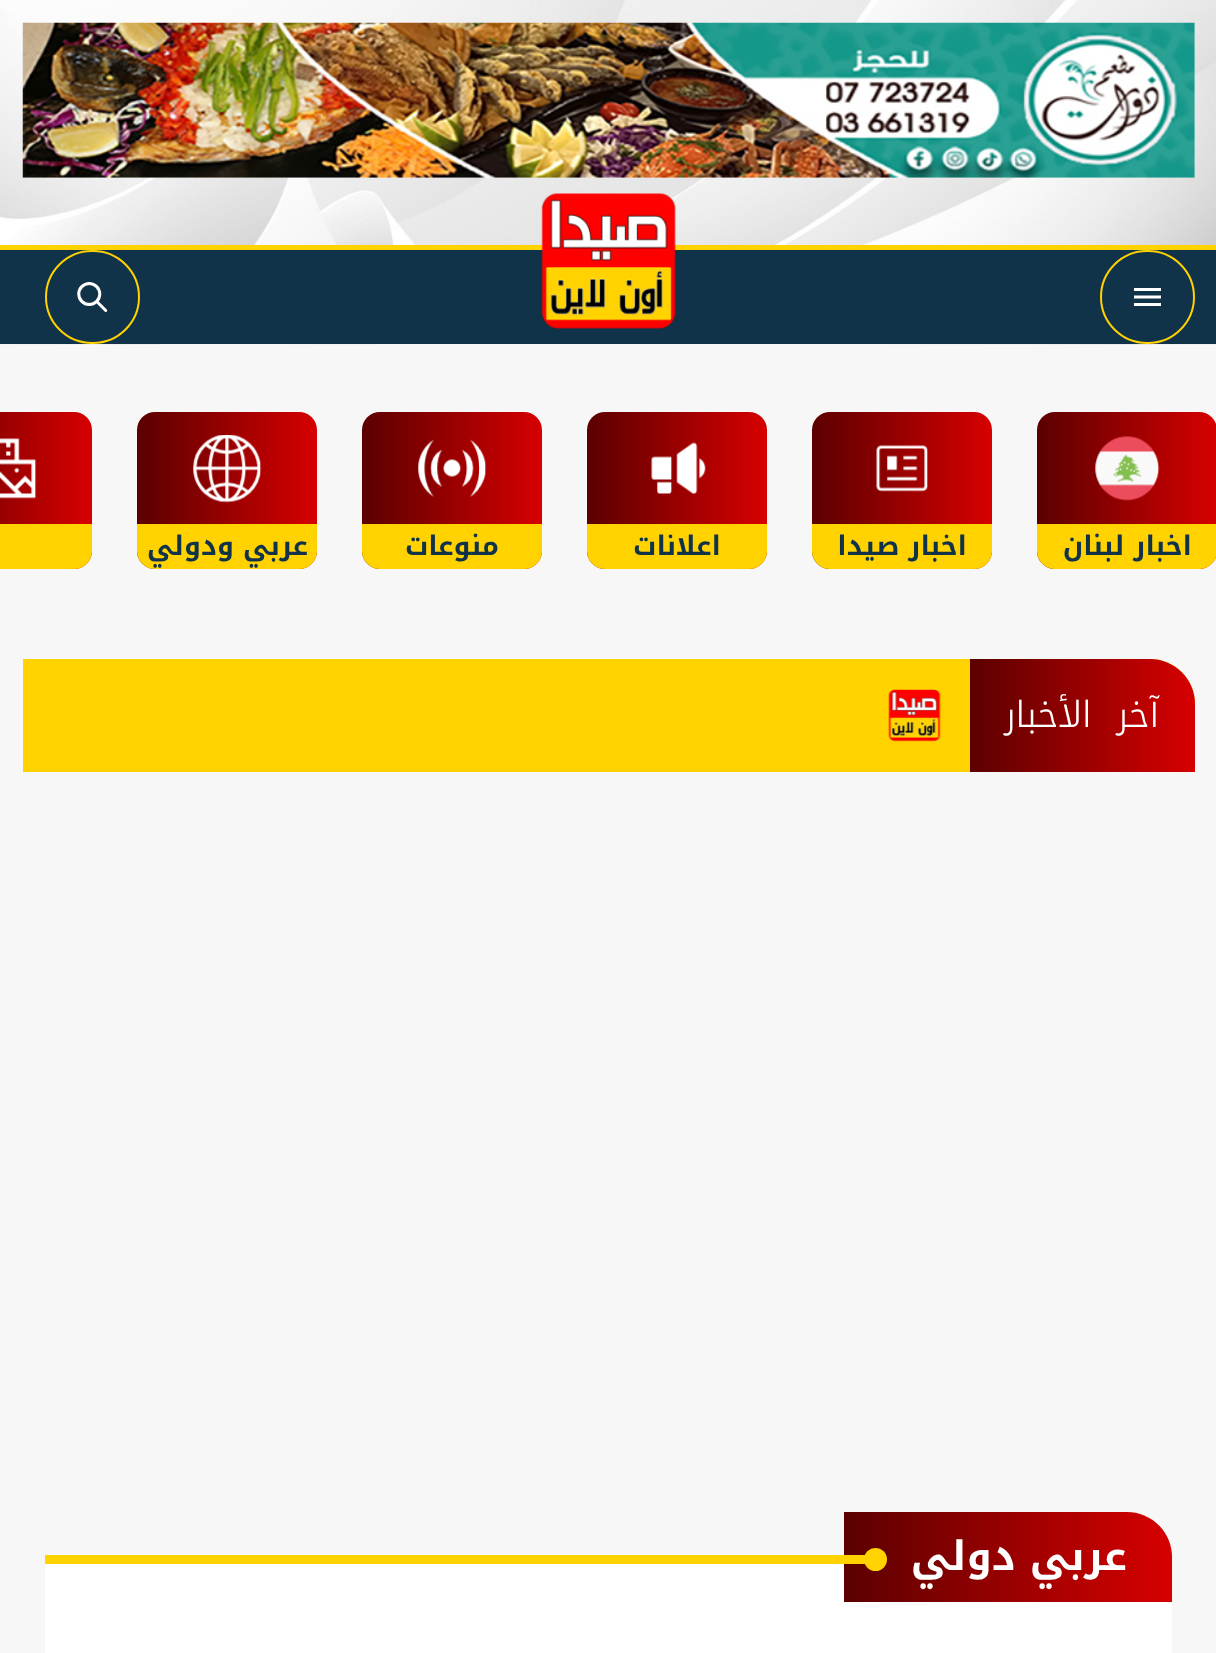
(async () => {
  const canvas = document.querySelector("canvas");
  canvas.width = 1216;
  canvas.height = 1653;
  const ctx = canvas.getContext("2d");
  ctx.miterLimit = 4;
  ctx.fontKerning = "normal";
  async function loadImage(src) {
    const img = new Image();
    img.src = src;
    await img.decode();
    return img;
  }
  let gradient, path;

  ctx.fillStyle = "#f7f7f7";
  ctx.fillRect(0, 0, 1216, 1653);
  ctx.drawImage(await loadImage("img/1.png"), 0, 0, 1216, 345);
  ctx.drawImage(await loadImage("img/2.png"), 22, 22, 1173, 156);
  ctx.fillStyle = "#11334a";
  ctx.fillRect(0, 250, 1216, 94);
  ctx.fillStyle = "#ffd200";
  ctx.fillRect(0, 245, 1216, 5);
  ctx.beginPath();
  ctx.roundRect(1101, 251, 93, 92, 46);
  ctx.strokeStyle = "#ffd200";
  ctx.lineWidth = 2;
  ctx.stroke();
  ctx.drawImage(await loadImage("img/3.png"), 1134, 288, 27, 18);
  ctx.drawImage(await loadImage("img/4.png"), 541, 193, 135, 136);
  ctx.beginPath();
  ctx.roundRect(46, 251, 93, 92, 46);
  ctx.stroke();
  ctx.drawImage(await loadImage("img/5.png"), 77, 282, 31, 30);
  gradient = ctx.createLinearGradient(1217, 491, 1037, 491);
  gradient.addColorStop(0, "#d70000");
  gradient.addColorStop(1, "#5b0000");
  ctx.fillStyle = gradient;
  ctx.beginPath();
  ctx.roundRect(1037, 412, 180, 157, 18);
  ctx.fill();
  ctx.drawImage(await loadImage("img/6.png"), 1095, 436, 65, 65);
  ctx.fillStyle = "#ffd200";
  path = new Path2D("M1037 524H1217V551C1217 561 1209 569 1199 569H1055C1045 569 1037 561 1037 551Z");
  ctx.fill(path);
  gradient = ctx.createLinearGradient(992, 491, 812, 491);
  gradient.addColorStop(0, "#d70000");
  gradient.addColorStop(1, "#5b0000");
  ctx.fillStyle = gradient;
  ctx.beginPath();
  ctx.roundRect(812, 412, 180, 157, 18);
  ctx.fill();
  ctx.drawImage(await loadImage("img/7.png"), 876, 445, 52, 47);
  ctx.fillStyle = "#ffd200";
  ctx.beginPath();
  ctx.roundRect(812, 524, 180, 45, [0, 0, 18, 18]);
  ctx.fill();
  gradient = ctx.createLinearGradient(767, 491, 587, 491);
  gradient.addColorStop(0, "#d70000");
  gradient.addColorStop(1, "#5b0000");
  ctx.fillStyle = gradient;
  ctx.beginPath();
  ctx.roundRect(587, 412, 180, 157, 18);
  ctx.fill();
  ctx.drawImage(await loadImage("img/8.png"), 651, 442, 55, 52);
  ctx.fillStyle = "#ffd200";
  ctx.beginPath();
  ctx.roundRect(587, 524, 180, 45, [0, 0, 18, 18]);
  ctx.fill();
  gradient = ctx.createLinearGradient(542, 491, 362, 491);
  gradient.addColorStop(0, "#d70000");
  gradient.addColorStop(1, "#5b0000");
  ctx.fillStyle = gradient;
  ctx.beginPath();
  ctx.roundRect(362, 412, 180, 157, 18);
  ctx.fill();
  ctx.drawImage(await loadImage("img/9.png"), 418, 439, 69, 58);
  ctx.fillStyle = "#ffd200";
  ctx.beginPath();
  ctx.roundRect(362, 524, 180, 45, [0, 0, 18, 18]);
  ctx.fill();
  gradient = ctx.createLinearGradient(317, 491, 137, 491);
  gradient.addColorStop(0, "#d70000");
  gradient.addColorStop(1, "#5b0000");
  ctx.fillStyle = gradient;
  ctx.beginPath();
  ctx.roundRect(137, 412, 180, 157, 18);
  ctx.fill();
  ctx.drawImage(await loadImage("img/10.png"), 193, 435, 69, 68);
  ctx.fillStyle = "#ffd200";
  ctx.beginPath();
  ctx.roundRect(137, 524, 180, 45, [0, 0, 18, 18]);
  ctx.fill();
  gradient = ctx.createLinearGradient(92, 491, -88, 491);
  gradient.addColorStop(0, "#d70000");
  gradient.addColorStop(1, "#5b0000");
  ctx.fillStyle = gradient;
  ctx.beginPath();
  ctx.roundRect(0, 412, 92, 157, [0, 18, 18, 0]);
  ctx.fill();
  ctx.drawImage(await loadImage("img/11.png"), 0, 438, 37, 61);
  ctx.fillStyle = "#ffd200";
  ctx.beginPath();
  ctx.roundRect(0, 524, 92, 45, [0, 0, 18, 0]);
  ctx.fill();
  ctx.beginPath();
  ctx.roundRect(23, 659, 1172, 113, [0, 45, 0, 0]);
  ctx.fill();
  gradient = ctx.createLinearGradient(1195, 716, 970, 716);
  gradient.addColorStop(0, "#d70000");
  gradient.addColorStop(1, "#5b0000");
  ctx.fillStyle = gradient;
  ctx.beginPath();
  ctx.roundRect(970, 659, 225, 113, [0, 45, 0, 0]);
  ctx.fill();
  ctx.drawImage(await loadImage("img/12.png"), 888, 689, 53, 53);
  ctx.fillStyle = "#ffd200";
  ctx.fillRect(45, 1555, 1127, 9);
  ctx.fillStyle = "#ffffff";
  path = new Path2D("M45 1564H1127C1152 1564 1172 1584 1172 1609V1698H45Z");
  ctx.fill(path);
  gradient = ctx.createLinearGradient(1172, 1557, 844, 1557);
  gradient.addColorStop(0, "#d70000");
  gradient.addColorStop(1, "#5b0000");
  ctx.fillStyle = gradient;
  ctx.beginPath();
  ctx.roundRect(844, 1512, 328, 90, [0, 45, 0, 0]);
  ctx.fill();
  ctx.fillStyle = "#ffd200";
  ctx.beginPath();
  ctx.arc(875.5, 1559.5, 11.5, 0, Math.PI * 2);
  ctx.fill();
  ctx.fillRect(844, 1555, 21, 9);
  ctx.direction = "rtl";
  ctx.font = "bold 27px Noto Kufi Arabic";
  ctx.fillStyle = "#11334a";
  for (const [text, x, y] of [
    ["اخبار لبنان", 1192, 555],
    ["اخبار صيدا", 967, 555],
    ["اعلانات", 721, 555],
    ["منوعات", 499, 555],
    ["عربي ودولي", 308, 555],
  ]) {
    ctx.fillText(text, x, y);
  }
  ctx.wordSpacing = "13px";
  ctx.font = "300 36px Noto Kufi Arabic";
  ctx.fillStyle = "#ffffff";
  ctx.fillText("آخر الأخبار", 1159, 727);
  ctx.wordSpacing = "0px";
  ctx.font = "bold 40.5px Noto Kufi Arabic";
  ctx.fillText("عربي دولي", 1127, 1570);
})();
